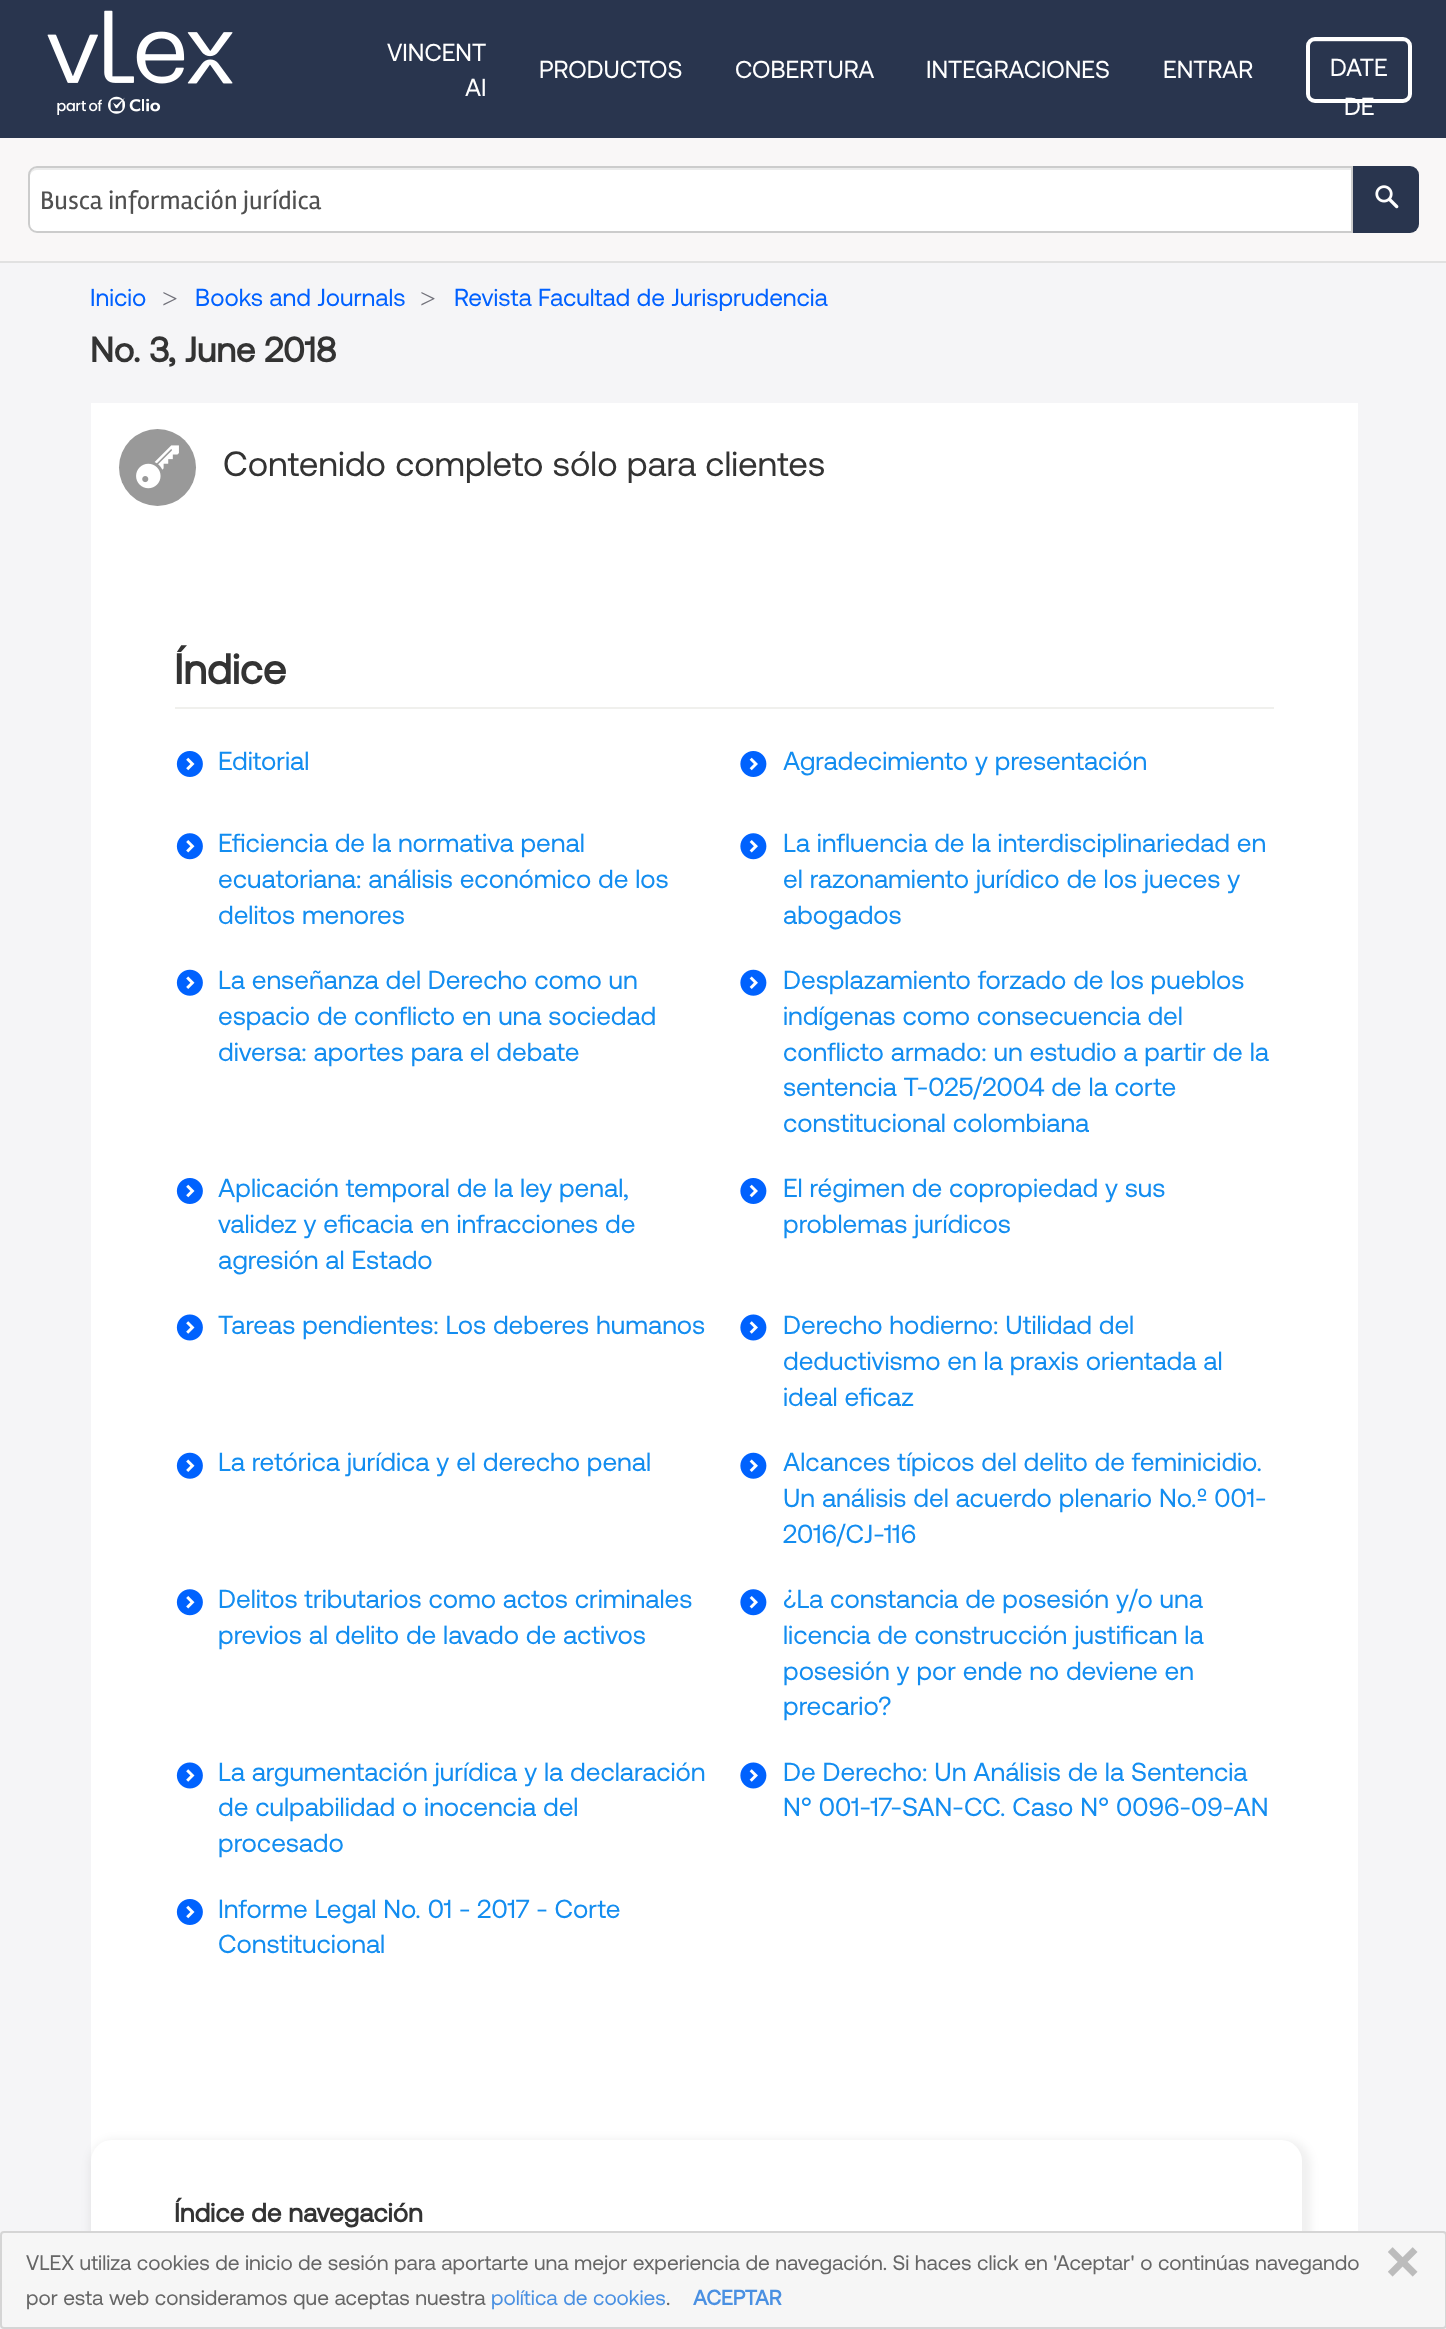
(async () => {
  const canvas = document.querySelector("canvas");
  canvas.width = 1446;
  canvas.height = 2329;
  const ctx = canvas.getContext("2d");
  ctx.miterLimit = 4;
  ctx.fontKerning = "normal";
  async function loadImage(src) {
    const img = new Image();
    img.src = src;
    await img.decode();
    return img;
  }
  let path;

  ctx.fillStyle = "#f5f5f7";
  ctx.fillRect(0, 0, 1446, 2329);
  ctx.fillStyle = "#29354e";
  ctx.fillRect(0, 0, 1446, 138);
  ctx.drawImage(await loadImage("img/1.png"), 47, 10, 186, 105);
  ctx.fillStyle = "#545d71";
  path = new Path2D("M1314 42H1404C1406 42 1409 44 1409 47C1409 36 1398 40 1389 40H1329C1320 40 1309 36 1309 47C1309 44 1311 42 1314 42Z");
  ctx.fill(path);
  ctx.beginPath();
  ctx.roundRect(1308, 39, 102, 62, 7);
  ctx.strokeStyle = "#ffffff";
  ctx.lineWidth = 4;
  ctx.stroke();
  ctx.fillStyle = "#f9f7f7";
  ctx.fillRect(0, 138, 1446, 123);
  ctx.fillStyle = "#e1e1e1";
  ctx.fillRect(0, 261, 1446, 2);
  ctx.fillStyle = "#ffffff";
  ctx.beginPath();
  ctx.roundRect(28, 166, 1325, 67, [9, 0, 0, 9]);
  ctx.fill();
  ctx.fillStyle = "#ececec";
  path = new Path2D("M37 170H1351V168H37C33 168 30 171 30 175V177C30 173 33 170 37 170Z");
  ctx.fill(path);
  ctx.beginPath();
  ctx.roundRect(29, 167, 1323, 65, [8, 0, 0, 8]);
  ctx.strokeStyle = "#cccccc";
  ctx.lineWidth = 2;
  ctx.stroke();
  ctx.fillStyle = "#29354e";
  ctx.beginPath();
  ctx.roundRect(1353, 166, 66, 67, [0, 9, 9, 0]);
  ctx.fill();
  ctx.drawImage(await loadImage("img/2.png"), 1375, 185, 24, 24);
  ctx.fillStyle = "#ffffff";
  ctx.fillRect(91, 403, 1267, 1828);
  ctx.fillStyle = "#999999";
  ctx.beginPath();
  ctx.arc(157.5, 467.5, 38.5, 0, Math.PI * 2);
  ctx.fill();
  ctx.drawImage(await loadImage("img/3.png"), 136, 445, 43, 44);
  ctx.fillStyle = "#f0f0ed";
  ctx.fillRect(175, 707, 1099, 2);
  ctx.drawImage(await loadImage("img/4.png"), 176, 751, 27, 26);
  ctx.drawImage(await loadImage("img/5.png"), 740, 751, 27, 26);
  ctx.drawImage(await loadImage("img/6.png"), 176, 833, 27, 27);
  ctx.drawImage(await loadImage("img/7.png"), 740, 833, 27, 27);
  ctx.drawImage(await loadImage("img/8.png"), 176, 969, 27, 27);
  ctx.drawImage(await loadImage("img/9.png"), 740, 969, 27, 27);
  ctx.drawImage(await loadImage("img/4.png"), 176, 1178, 27, 26);
  ctx.drawImage(await loadImage("img/5.png"), 740, 1178, 27, 26);
  ctx.drawImage(await loadImage("img/10.png"), 176, 1314, 27, 27);
  ctx.drawImage(await loadImage("img/11.png"), 740, 1314, 27, 27);
  ctx.drawImage(await loadImage("img/8.png"), 176, 1452, 27, 27);
  ctx.drawImage(await loadImage("img/9.png"), 740, 1452, 27, 27);
  ctx.drawImage(await loadImage("img/6.png"), 176, 1589, 27, 27);
  ctx.drawImage(await loadImage("img/7.png"), 740, 1589, 27, 27);
  ctx.drawImage(await loadImage("img/10.png"), 176, 1762, 27, 27);
  ctx.drawImage(await loadImage("img/11.png"), 740, 1762, 27, 27);
  ctx.drawImage(await loadImage("img/4.png"), 176, 1899, 27, 26);
  ctx.fillStyle = "rgba(0, 0, 0, 0.06)";
  ctx.filter = "blur(4.5px)";
  ctx.beginPath();
  ctx.roundRect(89, 2139, 1222, 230, 26);
  ctx.fill();
  ctx.filter = "none";
  ctx.fillStyle = "#ffffff";
  ctx.beginPath();
  ctx.roundRect(91, 2140, 1211, 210, 21);
  ctx.fill();
  ctx.fillStyle = "#f6f6f6";
  ctx.beginPath();
  ctx.roundRect(1, 2232, 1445, 96, 3);
  ctx.fill();
  ctx.strokeStyle = "#d5d5d5";
  ctx.stroke();
  ctx.drawImage(await loadImage("img/12.png"), 1388, 2247, 30, 30);
  ctx.font = "24.5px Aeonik";
  ctx.fillStyle = "#ffffff";
  for (const [text, x, y] of [
    ["VINCENT", 387, 61],
    ["AI", 465, 96],
    ["PRODUCTOS", 539, 78],
    ["COBERTURA", 735, 78],
    ["INTEGRACIONES", 926, 78],
    ["ENTRAR", 1163, 78],
    ["DATE", 1330, 76],
    ["DE", 1344, 115],
  ]) {
    ctx.fillText(text, x, y);
  }
  ctx.font = "26.25px Rambla";
  ctx.fillStyle = "#505050";
  ctx.fillText("Busca información jurídica", 40, 209);
  ctx.font = "24.5px Aeonik";
  ctx.fillStyle = "#0161ff";
  ctx.fillText("Inicio", 90, 306);
  ctx.font = "28px Liberation Serif";
  ctx.fillStyle = "#71717a";
  ctx.fillText(">", 162, 308);
  ctx.font = "24.5px Aeonik";
  ctx.fillStyle = "#0161ff";
  ctx.fillText("Books and Journals", 195, 306);
  ctx.font = "28px Liberation Serif";
  ctx.fillStyle = "#71717a";
  ctx.fillText(">", 420, 308);
  ctx.font = "24.5px Aeonik";
  ctx.fillStyle = "#0161ff";
  ctx.fillText("Revista Facultad de Jurisprudencia", 454, 306);
  ctx.font = "bold 35px Aeonik";
  ctx.fillStyle = "#333333";
  ctx.fillText("No. 3, June 2018", 90, 362);
  ctx.font = "35px Aeonik";
  ctx.fillText("Contenido completo sólo para clientes", 223, 476);
  ctx.font = "bold 42px Aeonik";
  ctx.fillText("Índice", 174, 684);
  ctx.font = "26.25px Aeonik";
  ctx.fillStyle = "#138df0";
  for (const [text, x, y] of [
    ["Editorial", 218, 770],
    ["Agradecimiento y presentación", 783, 770],
    ["Eficiencia de la normativa penal", 218, 852],
    ["ecuatoriana: análisis económico de los", 218, 888],
    ["delitos menores", 218, 924],
    ["La influencia de la interdisciplinariedad en", 783, 852],
    ["el razonamiento jurídico de los jueces y", 783, 888],
    ["abogados", 783, 924],
    ["La enseñanza del Derecho como un", 218, 989],
    ["espacio de conflicto en una sociedad", 218, 1025],
    ["diversa: aportes para el debate", 218, 1061],
    ["Desplazamiento forzado de los pueblos", 783, 989],
    ["indígenas como consecuencia del", 783, 1025],
    ["conflicto armado: un estudio a partir de la", 783, 1061],
    ["sentencia T-025/2004 de la corte", 783, 1096],
    ["constitucional colombiana", 783, 1132],
    ["Aplicación temporal de la ley penal,", 218, 1197],
    ["validez y eficacia en infracciones de", 218, 1233],
    ["agresión al Estado", 218, 1269],
    ["El régimen de copropiedad y sus", 783, 1197],
    ["problemas jurídicos", 783, 1233],
    ["Tareas pendientes: Los deberes humanos", 218, 1334],
    ["Derecho hodierno: Utilidad del", 783, 1334],
    ["deductivismo en la praxis orientada al", 783, 1370],
    ["ideal eficaz", 783, 1406],
    ["La retórica jurídica y el derecho penal", 218, 1471],
    ["Alcances típicos del delito de feminicidio.", 783, 1471],
    ["Un análisis del acuerdo plenario No.º 001-", 783, 1507],
    ["2016/CJ-116", 783, 1543],
    ["Delitos tributarios como actos criminales", 218, 1608],
    ["previos al delito de lavado de activos", 218, 1644],
    ["¿La constancia de posesión y/o una", 783, 1608],
    ["licencia de construcción justifican la", 783, 1644],
    ["posesión y por ende no deviene en", 783, 1680],
    ["precario?", 783, 1715],
    ["La argumentación jurídica y la declaración", 218, 1781],
    ["de culpabilidad o inocencia del", 218, 1816],
    ["procesado", 218, 1852],
    ["De Derecho: Un Análisis de la Sentencia", 783, 1781],
    ["N° 001-17-SAN-CC. Caso N° 0096-09-AN", 783, 1816],
    ["Informe Legal No. 01 - 2017 - Corte", 218, 1918],
    ["Constitucional", 218, 1953],
  ]) {
    ctx.fillText(text, x, y);
  }
  ctx.font = "bold 26.25px Aeonik";
  ctx.fillStyle = "#333333";
  ctx.fillText("Índice de navegación", 174, 2222);
  ctx.font = "21px Aeonik";
  ctx.fillStyle = "#666666";
  ctx.fillText("VLEX utiliza cookies de inicio de sesión para aportarte una mejor experiencia de navegación. Si haces click en 'Aceptar' o continúas navegando", 26, 2270);
  ctx.fillText("por esta web consideramos que aceptas nuestra", 26, 2305);
  ctx.fillStyle = "#4a90e2";
  ctx.fillText("política de cookies", 491, 2305);
  ctx.fillStyle = "#666666";
  ctx.fillText(".", 666, 2305);
  ctx.font = "bold 21px Aeonik";
  ctx.fillStyle = "#4a90e2";
  ctx.fillText("ACEPTAR", 693, 2305);
})();
